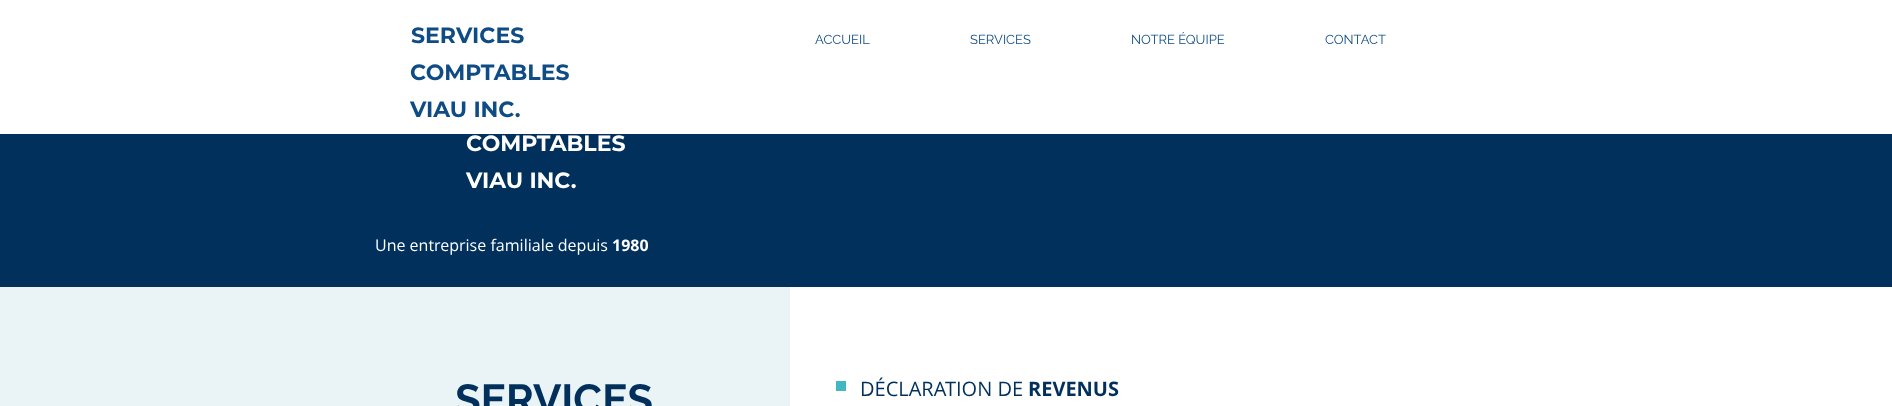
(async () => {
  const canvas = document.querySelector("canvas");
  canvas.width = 1892;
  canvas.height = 406;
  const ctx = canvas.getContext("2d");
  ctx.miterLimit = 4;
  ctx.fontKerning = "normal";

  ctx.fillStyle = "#ffffff";
  ctx.fillRect(0, 0, 1892, 406);
  for (const [x, y, w, h, color] of [
    [0, 134, 1892, 153, "#00305b"],
    [0, 287, 790, 119, "#eaf4f6"],
    [836, 381, 10, 10, "#41b7c4"],
  ]) {
    ctx.fillStyle = color;
    ctx.fillRect(x, y, w, h);
  }
  ctx.font = "bold 22px Montserrat";
  ctx.fillStyle = "#0f4c85";
  for (const [text, x, y] of [
    ["SERVICES", 411, 43],
    ["COMPTABLES", 410, 80],
    ["VIAU INC.", 410, 117],
  ]) {
    ctx.fillText(text, x, y);
  }
  ctx.font = "13px Raleway";
  for (const [text, x, y] of [
    ["ACCUEIL", 815, 44],
    ["SERVICES", 970, 44],
    ["NOTRE ÉQUIPE", 1131, 44],
    ["CONTACT", 1325, 44],
  ]) {
    ctx.fillText(text, x, y);
  }
  ctx.font = "bold 22px Montserrat";
  ctx.fillStyle = "#ffffff";
  ctx.fillText("COMPTABLES", 466, 151);
  ctx.fillText("VIAU INC.", 466, 188);
  ctx.font = "16px Open Sans";
  ctx.fillText("Une entreprise familiale depuis", 375, 251);
  ctx.font = "bold 16px Open Sans";
  ctx.fillText("1980", 612, 251);
  ctx.font = "bold 42px Raleway";
  ctx.fillStyle = "#00305b";
  ctx.fillText("SERVICES", 455, 414);
  ctx.font = "20px Open Sans";
  ctx.fillText("DÉCLARATION DE", 860, 396);
  ctx.font = "bold 20px Open Sans";
  ctx.fillText("REVENUS", 1028, 396);
})();
